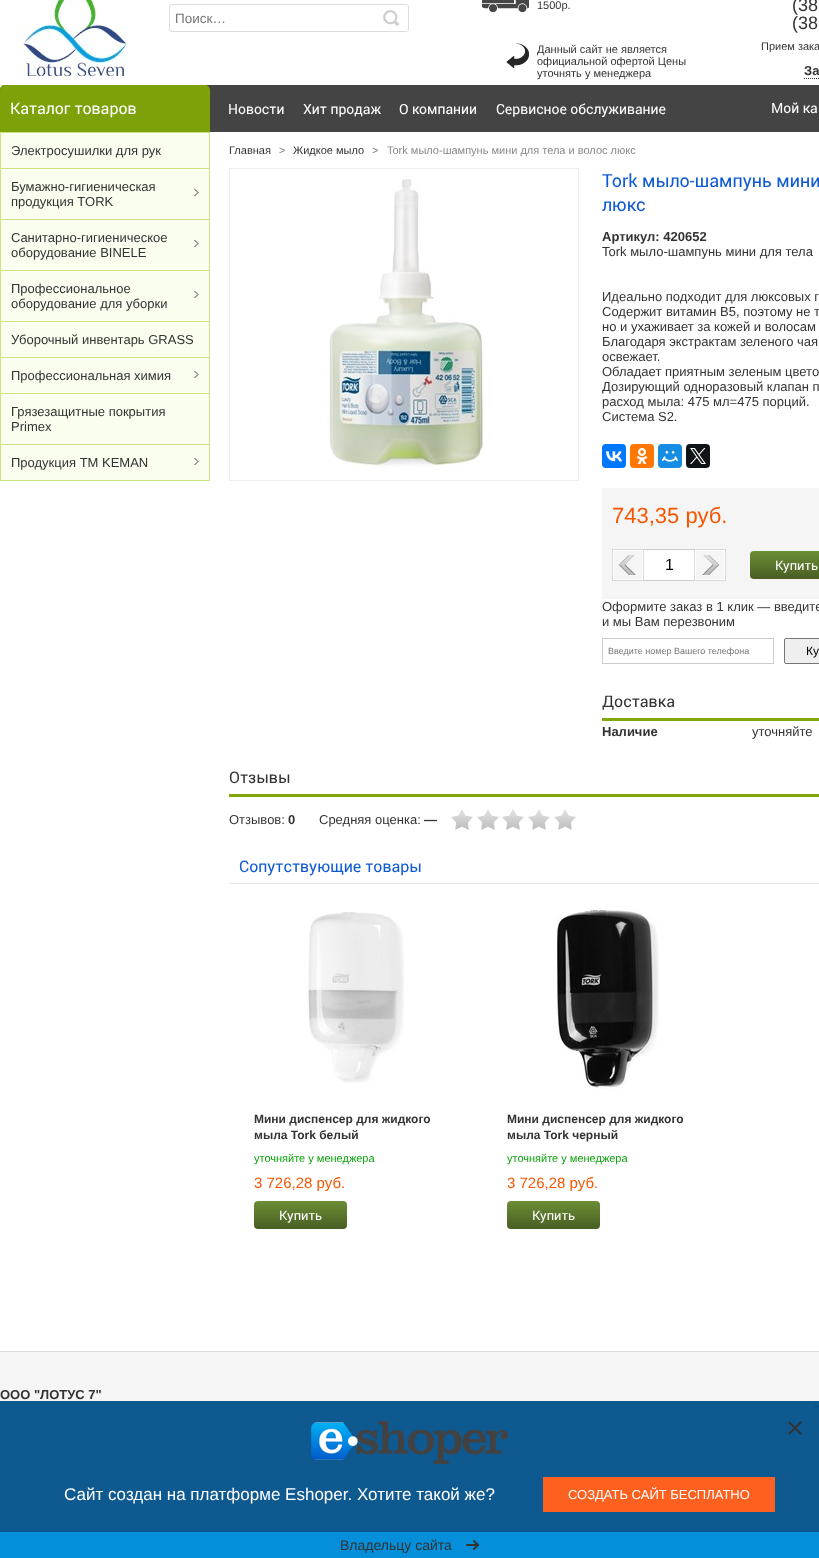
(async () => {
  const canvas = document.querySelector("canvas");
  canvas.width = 819;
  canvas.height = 1558;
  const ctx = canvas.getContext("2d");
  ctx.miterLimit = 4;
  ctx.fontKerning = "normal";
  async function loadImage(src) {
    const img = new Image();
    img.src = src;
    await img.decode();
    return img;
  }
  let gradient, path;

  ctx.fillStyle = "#ffffff";
  ctx.fillRect(0, 0, 819, 1558);
  ctx.drawImage(await loadImage("img/1.png"), 16, 0, 112, 76);
  ctx.beginPath();
  ctx.roundRect(169.5, 4.5, 239, 27, 2.5);
  ctx.strokeStyle = "#dddddd";
  ctx.stroke();
  ctx.drawImage(await loadImage("img/2.png"), 383, 10, 16, 16);
  ctx.drawImage(await loadImage("img/3.png"), 482, 0, 47, 12);
  ctx.drawImage(await loadImage("img/4.png"), 506, 43, 23, 26);
  path = new Path2D("M804 78.5H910");
  ctx.strokeStyle = "#333333";
  ctx.setLineDash([1, 1]);
  ctx.stroke(path);
  ctx.fillStyle = "#444444";
  path = new Path2D("M5 85H819C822 85 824 87 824 90V127C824 130 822 132 819 132H0V90C0 87 2 85 5 85Z");
  ctx.fill(path);
  ctx.fillStyle = "#7ca109";
  ctx.beginPath();
  ctx.roundRect(0, 85, 210, 47, [5, 5, 0, 0]);
  ctx.fill();
  for (const [x, y, w, h, color] of [
    [1, 133, 208, 347, "#fafeee"],
    [0, 132, 210, 1, "#cbe383"],
    [209, 132, 1, 349, "#cbe383"],
    [0, 132, 1, 349, "#cbe383"],
    [1, 168, 208, 1, "#cbe383"],
    [1, 219, 208, 1, "#cbe383"],
  ]) {
    ctx.fillStyle = color;
    ctx.fillRect(x, y, w, h);
  }
  ctx.drawImage(await loadImage("img/5.png"), 194, 189, 5, 7);
  ctx.fillRect(1, 270, 208, 1);
  ctx.drawImage(await loadImage("img/5.png"), 194, 240, 5, 7);
  ctx.fillRect(1, 321, 208, 1);
  ctx.drawImage(await loadImage("img/5.png"), 194, 291, 5, 7);
  ctx.fillRect(1, 357, 208, 1);
  ctx.fillRect(1, 393, 208, 1);
  ctx.drawImage(await loadImage("img/5.png"), 194, 371, 5, 7);
  ctx.fillRect(1, 444, 208, 1);
  ctx.fillRect(1, 480, 208, 1);
  ctx.drawImage(await loadImage("img/5.png"), 194, 458, 5, 7);
  ctx.strokeStyle = "#eeeeee";
  ctx.setLineDash([]);
  ctx.strokeRect(229.5, 168.5, 349, 312);
  ctx.drawImage(await loadImage("img/6.png"), 328, 179, 157, 289);
  ctx.fillStyle = "#0077ff";
  ctx.beginPath();
  ctx.roundRect(602, 444, 24, 24, 4);
  ctx.fill();
  ctx.drawImage(await loadImage("img/7.png"), 606, 451, 16, 11);
  ctx.fillStyle = "#ff7700";
  ctx.beginPath();
  ctx.roundRect(630, 444, 24, 24, 4);
  ctx.fill();
  ctx.drawImage(await loadImage("img/8.png"), 636, 448, 12, 16);
  ctx.fillStyle = "#168de2";
  ctx.beginPath();
  ctx.roundRect(658, 444, 24, 24, 4);
  ctx.fill();
  ctx.drawImage(await loadImage("img/9.png"), 662, 451, 16, 11);
  ctx.fillStyle = "#0f1419";
  ctx.beginPath();
  ctx.roundRect(686, 444, 24, 24, 4);
  ctx.fill();
  ctx.drawImage(await loadImage("img/10.png"), 690, 448, 16, 16);
  ctx.fillStyle = "#f5f5f5";
  ctx.fillRect(602, 488, 217, 111);
  ctx.drawImage(await loadImage("img/11.png"), 612, 549, 32, 32);
  for (const [x, y, w, h, color] of [
    [644, 549, 50, 1, "#cccccc"],
    [644, 580, 50, 1, "#cccccc"],
    [644, 550, 50, 30, "#ffffff"],
  ]) {
    ctx.fillStyle = color;
    ctx.fillRect(x, y, w, h);
  }
  ctx.drawImage(await loadImage("img/12.png"), 694, 549, 32, 32);
  gradient = ctx.createLinearGradient(797, 551, 797, 579);
  gradient.addColorStop(0, "#6c8e35");
  gradient.addColorStop(1, "#485e23");
  ctx.fillStyle = gradient;
  ctx.beginPath();
  ctx.roundRect(750, 551, 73, 28, 4);
  ctx.fill();
  ctx.strokeStyle = "#cccccc";
  ctx.strokeRect(602.5, 638.5, 171, 25);
  ctx.fillStyle = "#efefef";
  ctx.beginPath();
  ctx.roundRect(784.5, 638.5, 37, 25, 1.5);
  ctx.fill();
  ctx.strokeStyle = "#767676";
  ctx.stroke();
  ctx.fillStyle = "#81a709";
  ctx.fillRect(602, 718, 217, 3);
  ctx.fillRect(229, 794, 590, 3);
  ctx.drawImage(await loadImage("img/13.png"), 451, 809, 22, 21);
  ctx.drawImage(await loadImage("img/13.png"), 477, 809, 22, 21);
  ctx.drawImage(await loadImage("img/13.png"), 502, 809, 22, 21);
  ctx.drawImage(await loadImage("img/13.png"), 528, 809, 22, 21);
  ctx.drawImage(await loadImage("img/13.png"), 554, 809, 22, 21);
  ctx.fillStyle = "#e5e5e5";
  ctx.fillRect(229, 883, 590, 1);
  ctx.drawImage(await loadImage("img/14.png"), 308, 912, 96, 171);
  gradient = ctx.createLinearGradient(301, 1201, 301, 1229);
  gradient.addColorStop(0, "#6c8e35");
  gradient.addColorStop(1, "#485e23");
  ctx.fillStyle = gradient;
  ctx.beginPath();
  ctx.roundRect(254, 1201, 93, 28, 4);
  ctx.fill();
  ctx.drawImage(await loadImage("img/15.png"), 556, 907, 103, 184);
  gradient = ctx.createLinearGradient(554, 1201, 554, 1229);
  gradient.addColorStop(0, "#6c8e35");
  gradient.addColorStop(1, "#485e23");
  ctx.fillStyle = gradient;
  ctx.beginPath();
  ctx.roundRect(507, 1201, 93, 28, 4);
  ctx.fill();
  for (const [x, y, w, h, color] of [
    [0, 1352, 819, 180, "#f5f5f5"],
    [0, 1351, 819, 1, "#dddddd"],
    [814, 1406, 5, 1, "#333333"],
    [0, 1401, 819, 131, "rgba(2, 80, 139, 0.95)"],
  ]) {
    ctx.fillStyle = color;
    ctx.fillRect(x, y, w, h);
  }
  ctx.drawImage(await loadImage("img/16.png"), 788, 1421, 14, 14);
  ctx.drawImage(await loadImage("img/17.png"), 311, 1421, 197, 43);
  ctx.fillStyle = "#fd601f";
  ctx.fillRect(543, 1477, 232, 35);
  ctx.fillStyle = "#058ed9";
  ctx.fillRect(0, 1532, 819, 26);
  ctx.drawImage(await loadImage("img/18.png"), 466, 1540, 13, 10);
  ctx.font = "13.5px Liberation Sans";
  ctx.fillStyle = "#757575";
  ctx.fillText("Поиск…", 175, 23);
  ctx.font = "11px Liberation Sans";
  ctx.fillStyle = "#333333";
  for (const [text, x, y] of [
    ["1500р.", 537, 9],
    ["Данный сайт не является", 537, 53],
    ["официальной офертой Цены", 537, 65],
    ["уточнять у менеджера", 537, 77],
  ]) {
    ctx.fillText(text, x, y);
  }
  ctx.font = "18px Liberation Sans";
  ctx.fillText("(38", 792, 11);
  ctx.fillText("(38", 792, 29);
  ctx.font = "11px Liberation Sans";
  ctx.fillText("Прием зака", 761, 50);
  ctx.font = "bold 13px Liberation Sans";
  ctx.fillText("За", 804, 75);
  ctx.font = "16px Roboto";
  ctx.fillStyle = "#ffffff";
  ctx.fillText("Каталог товаров", 10, 114);
  ctx.font = "14px Roboto";
  for (const [text, x, y] of [
    ["Новости", 228, 114],
    ["Хит продаж", 303, 114],
    ["О компании", 399, 114],
    ["Сервисное обслуживание", 496, 114],
    ["Мой ка", 771, 113],
  ]) {
    ctx.fillText(text, x, y);
  }
  ctx.font = "13px Liberation Sans";
  ctx.fillStyle = "#333333";
  for (const [text, x, y] of [
    ["Электросушилки для рук", 11, 155],
    ["Бумажно-гигиеническая", 11, 191],
    ["продукция TORK", 11, 206],
    ["Cанитарно-гигиеническое", 11, 242],
    ["оборудование BINELE", 11, 257],
    ["Профессиональное", 11, 293],
    ["оборудование для уборки", 11, 308],
    ["Уборочный инвентарь GRASS", 11, 344],
    ["Профессиональная химия", 11, 380],
    ["Грязезащитные покрытия", 11, 416],
    ["Primex", 11, 431],
    ["Продукция ТМ KEMAN", 11, 467],
  ]) {
    ctx.fillText(text, x, y);
  }
  ctx.font = "11px Liberation Sans";
  ctx.fillText("Главная", 229, 154);
  ctx.fillStyle = "#888888";
  ctx.fillText(">", 279, 154);
  ctx.fillStyle = "#333333";
  ctx.fillText("Жидкое мыло", 293, 154);
  ctx.fillStyle = "#888888";
  ctx.fillText(">", 372, 154);
  ctx.fillText("Tork мыло-шампунь мини для тела и волос люкс", 387, 154);
  ctx.font = "18px Roboto";
  ctx.fillStyle = "#105bd5";
  ctx.fillText("Tork мыло-шампунь мини", 602, 187);
  ctx.fillText("люкс", 602, 211);
  ctx.font = "bold 13px Liberation Sans";
  ctx.fillStyle = "#333333";
  ctx.fillText("Артикул: 420652", 602, 241);
  ctx.font = "13px Liberation Sans";
  for (const [text, x, y] of [
    ["Tork мыло-шампунь мини для тела", 602, 256],
    ["Идеально подходит для люксовых г", 602, 301],
    ["Содержит витамин В5, поэтому не т", 602, 316],
    ["но и ухаживает за кожей и волосам", 602, 331],
    ["Благодаря экстрактам зеленого чая", 602, 346],
    ["освежает.", 602, 361],
    ["Обладает приятным зеленым цвето", 602, 376],
    ["Дозирующий одноразовый клапан п", 602, 391],
    ["расход мыла: 475 мл=475 порций.", 602, 406],
    ["Система S2.", 602, 421],
  ]) {
    ctx.fillText(text, x, y);
  }
  ctx.font = "22px Liberation Sans";
  ctx.fillStyle = "#f65501";
  ctx.fillText("743,35 руб.", 612, 523);
  ctx.font = "16px Liberation Sans";
  ctx.fillStyle = "#000000";
  ctx.fillText("1", 665, 570);
  ctx.font = "13px Roboto";
  ctx.fillStyle = "#ffffff";
  ctx.fillText("Купить", 775, 570);
  ctx.font = "13px Liberation Sans";
  ctx.fillStyle = "#333333";
  ctx.fillText("Оформите заказ в 1 клик — введите", 602, 611);
  ctx.fillText("и мы Вам перезвоним", 602, 626);
  ctx.font = "9px Liberation Sans";
  ctx.fillStyle = "#757575";
  ctx.fillText("Введите номер Вашего телефона", 608, 654);
  ctx.font = "12px Liberation Sans";
  ctx.fillStyle = "#000000";
  ctx.fillText("Ку", 806, 655);
  ctx.font = "16px Roboto";
  ctx.fillStyle = "#333333";
  ctx.fillText("Доставка", 602, 707);
  ctx.font = "bold 13px Liberation Sans";
  ctx.fillText("Наличие", 602, 736);
  ctx.font = "13px Liberation Sans";
  ctx.fillText("уточняйте", 752, 736);
  ctx.font = "16px Roboto";
  ctx.fillText("Отзывы", 229, 783);
  ctx.font = "13px Liberation Sans";
  ctx.fillText("Отзывов:", 229, 824);
  ctx.font = "bold 13px Liberation Sans";
  ctx.fillText("0", 288, 824);
  ctx.font = "13px Liberation Sans";
  ctx.fillText("Средняя оценка:", 319, 824);
  ctx.font = "bold 13px Liberation Sans";
  ctx.fillText("—", 424, 824);
  ctx.font = "16px Roboto";
  ctx.fillStyle = "#105bd5";
  ctx.fillText("Сопутствующие товары", 239, 872);
  ctx.font = "bold 12px Liberation Sans";
  ctx.fillStyle = "#333333";
  ctx.fillText("Мини диспенсер для жидкого", 254, 1123);
  ctx.fillText("мыла Tork белый", 254, 1139);
  ctx.font = "11px Liberation Sans";
  ctx.fillStyle = "#0aa20a";
  ctx.fillText("уточняйте у менеджера", 254, 1162);
  ctx.font = "15px Liberation Sans";
  ctx.fillStyle = "#f65501";
  ctx.fillText("3 726,28 руб.", 254, 1188);
  ctx.font = "13px Roboto";
  ctx.fillStyle = "#ffffff";
  ctx.fillText("Купить", 279, 1220);
  ctx.font = "bold 12px Liberation Sans";
  ctx.fillStyle = "#333333";
  ctx.fillText("Мини диспенсер для жидкого", 507, 1123);
  ctx.fillText("мыла Tork черный", 507, 1139);
  ctx.font = "11px Liberation Sans";
  ctx.fillStyle = "#0aa20a";
  ctx.fillText("уточняйте у менеджера", 507, 1162);
  ctx.font = "15px Liberation Sans";
  ctx.fillStyle = "#f65501";
  ctx.fillText("3 726,28 руб.", 507, 1188);
  ctx.font = "13px Roboto";
  ctx.fillStyle = "#ffffff";
  ctx.fillText("Купить", 532, 1220);
  ctx.font = "bold 13px Liberation Sans";
  ctx.fillStyle = "#333333";
  ctx.fillText("ООО \"ЛОТУС 7\"", 0, 1399);
  ctx.font = "17px Liberation Sans";
  ctx.fillStyle = "#ffffff";
  ctx.fillText("Сайт создан на платформе Eshoper. Хотите такой же?", 64, 1500);
  ctx.font = "13px Liberation Sans";
  ctx.fillText("СОЗДАТЬ САЙТ БЕСПЛАТНО", 568, 1499);
  ctx.font = "14px Liberation Sans";
  ctx.fillStyle = "#333333";
  ctx.fillText("Владельцу сайта", 340, 1550);
})();
